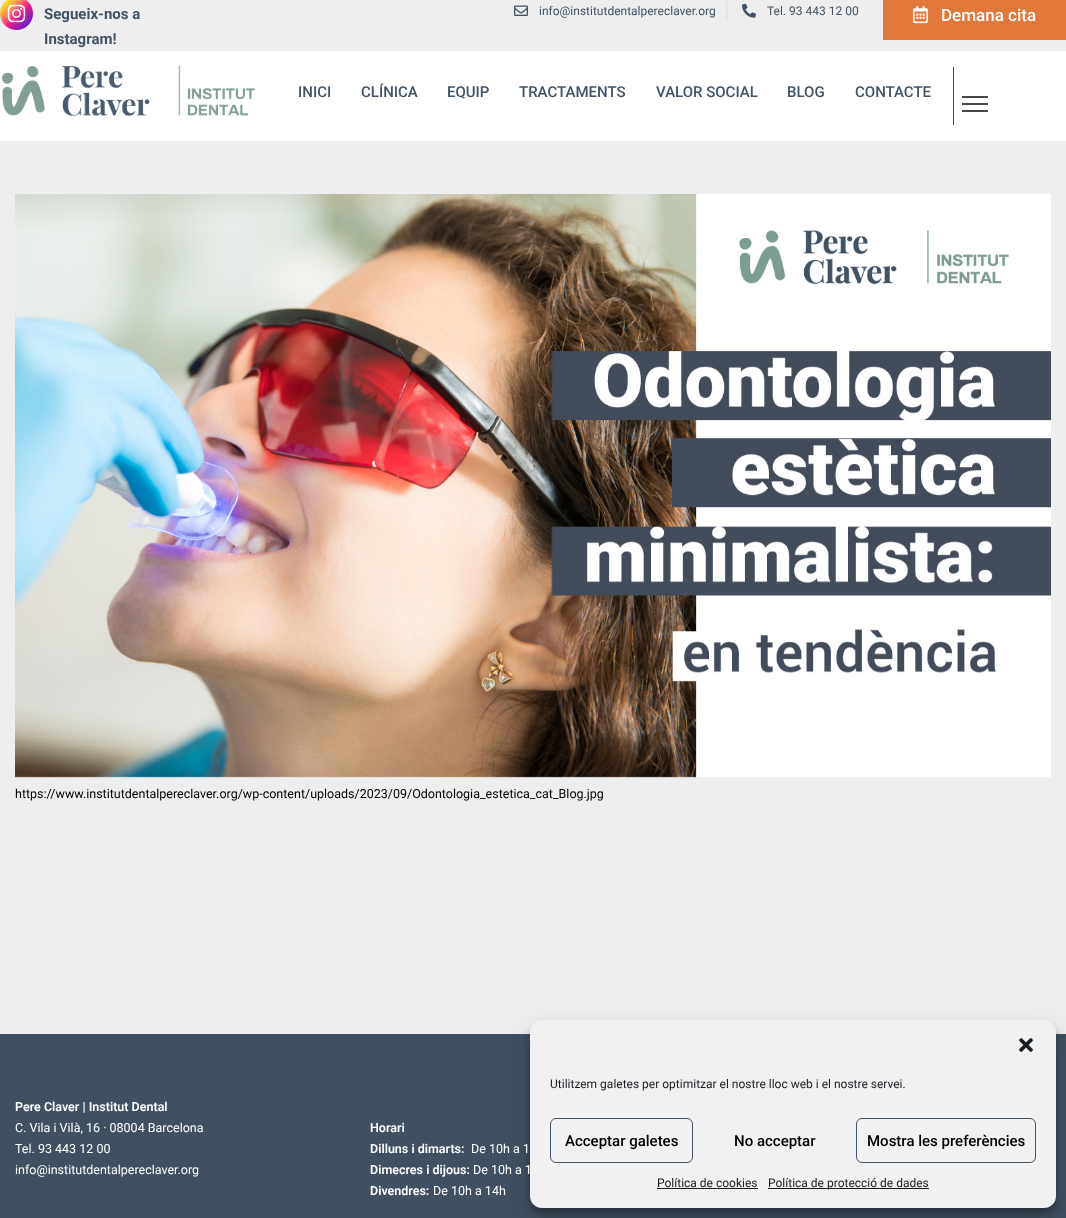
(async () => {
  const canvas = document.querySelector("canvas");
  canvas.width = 1066;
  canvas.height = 1218;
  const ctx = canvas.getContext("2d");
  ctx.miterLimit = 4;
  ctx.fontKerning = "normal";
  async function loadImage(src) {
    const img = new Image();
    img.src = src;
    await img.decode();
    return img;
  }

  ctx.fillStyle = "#ffffff";
  ctx.fillRect(0, 0, 1066, 1218);
  ctx.fillStyle = "#eeeeee";
  ctx.fillRect(0, 0, 1066, 51);
  ctx.drawImage(await loadImage("img/1.png"), 0, 0, 33, 30);
  ctx.drawImage(await loadImage("img/2.png"), 514, 5, 14, 11);
  ctx.fillStyle = "#e5e5e5";
  ctx.fillRect(726, 1, 2, 20);
  ctx.drawImage(await loadImage("img/3.png"), 742, 3, 14, 15);
  ctx.fillStyle = "#e17739";
  ctx.fillRect(883, 0, 183, 40);
  ctx.drawImage(await loadImage("img/4.png"), 913, 6, 15, 18);
  ctx.drawImage(await loadImage("img/5.png"), 2, 66, 253, 51);
  for (const [x, y, w, h, color] of [
    [953, 67, 1, 58, "#415364"],
    [962, 96, 26, 2, "#474747"],
    [962, 110, 26, 2, "#474747"],
    [962, 103, 26, 2, "#474747"],
    [0, 141, 1066, 893, "#eeeeee"],
  ]) {
    ctx.fillStyle = color;
    ctx.fillRect(x, y, w, h);
  }
  ctx.drawImage(await loadImage("img/6.png"), 15, 194, 1036, 584);
  ctx.fillStyle = "#415060";
  ctx.fillRect(0, 1034, 1066, 184);
  ctx.fillStyle = "rgba(0, 0, 0, 0.23)";
  ctx.filter = "blur(3px)";
  ctx.beginPath();
  ctx.roundRect(530, 1026, 526, 188, 12);
  ctx.fill();
  ctx.filter = "none";
  ctx.fillStyle = "rgba(0, 0, 0, 0.19)";
  ctx.filter = "blur(10px)";
  ctx.beginPath();
  ctx.roundRect(530, 1030, 526, 188, 12);
  ctx.fill();
  ctx.filter = "none";
  ctx.fillStyle = "#f1f1f1";
  ctx.beginPath();
  ctx.roundRect(530, 1020, 526, 188, 12);
  ctx.fill();
  ctx.drawImage(await loadImage("img/7.png"), 1019, 1038, 14, 14);
  ctx.beginPath();
  ctx.roundRect(550.5, 1118.5, 142, 44, 5.5);
  ctx.strokeStyle = "#415364";
  ctx.stroke();
  ctx.beginPath();
  ctx.roundRect(856.5, 1118.5, 179, 44, 5.5);
  ctx.stroke();
  ctx.fillStyle = "#191e23";
  ctx.fillRect(657, 1188, 101, 1);
  ctx.fillRect(768, 1188, 161, 1);
  ctx.font = "bold 15px Roboto";
  ctx.fillStyle = "#415364";
  ctx.fillText("Segueix-nos a", 44, 19);
  ctx.fillText("Instagram!", 44, 44);
  ctx.font = "12px Roboto";
  ctx.fillText("info@institutdentalpereclaver.org", 539, 15);
  ctx.fillText("Tel. 93 443 12 00", 767, 15);
  ctx.font = "500 17px Roboto";
  ctx.fillStyle = "#ffffff";
  ctx.fillText("Demana cita", 941, 21);
  ctx.font = "500 15px Roboto";
  ctx.fillStyle = "#415364";
  for (const [text, x, y] of [
    ["INICI", 298, 97],
    ["CLÍNICA", 361, 97],
    ["EQUIP", 447, 97],
    ["TRACTAMENTS", 519, 97],
    ["VALOR SOCIAL", 656, 97],
    ["BLOG", 787, 97],
    ["CONTACTE", 855, 97],
  ]) {
    ctx.fillText(text, x, y);
  }
  ctx.font = "12.5px Roboto";
  ctx.fillStyle = "#000000";
  ctx.fillText("https://www.institutdentalpereclaver.org/wp-content/uploads/2023/09/Odontologia_estetica_cat_Blog.jpg", 15, 798);
  ctx.font = "600 12.5px Roboto";
  ctx.fillStyle = "#ffffff";
  ctx.fillText("Pere Claver | Institut Dental", 15, 1111);
  ctx.font = "12.5px Roboto";
  for (const [text, x, y] of [
    ["C. Vila i Vilà, 16 · 08004 Barcelona", 15, 1132],
    ["Tel. 93 443 12 00", 15, 1153],
    ["info@institutdentalpereclaver.org", 15, 1174],
  ]) {
    ctx.fillText(text, x, y);
  }
  ctx.font = "600 12.5px Roboto";
  ctx.fillText("Horari", 370, 1132);
  ctx.fillText("Dilluns i dimarts:", 370, 1153);
  ctx.font = "12.5px Roboto";
  ctx.fillText("De 10h a 1", 471, 1153);
  ctx.font = "600 12.5px Roboto";
  ctx.fillText("Dimecres i dijous:", 370, 1174);
  ctx.font = "12.5px Roboto";
  ctx.fillText("De 10h a 1", 473, 1174);
  ctx.font = "600 12.5px Roboto";
  ctx.fillText("Divendres:", 370, 1195);
  ctx.font = "12.5px Roboto";
  ctx.fillText("De 10h a 14h", 433, 1195);
  ctx.font = "12px Roboto";
  ctx.fillStyle = "#191e23";
  ctx.fillText("Utilitzem galetes per optimitzar el nostre lloc web i el nostre servei.", 550, 1088);
  ctx.font = "500 15px Roboto";
  ctx.fillStyle = "#000000";
  for (const [text, x, y] of [
    ["Acceptar galetes", 565, 1146],
    ["No acceptar", 734, 1146],
    ["Mostra les preferències", 867, 1146],
  ]) {
    ctx.fillText(text, x, y);
  }
  ctx.font = "12px Roboto";
  ctx.fillStyle = "#191e23";
  ctx.fillText("Política de cookies", 657, 1187);
  ctx.fillText("Política de protecció de dades", 768, 1187);
})();
